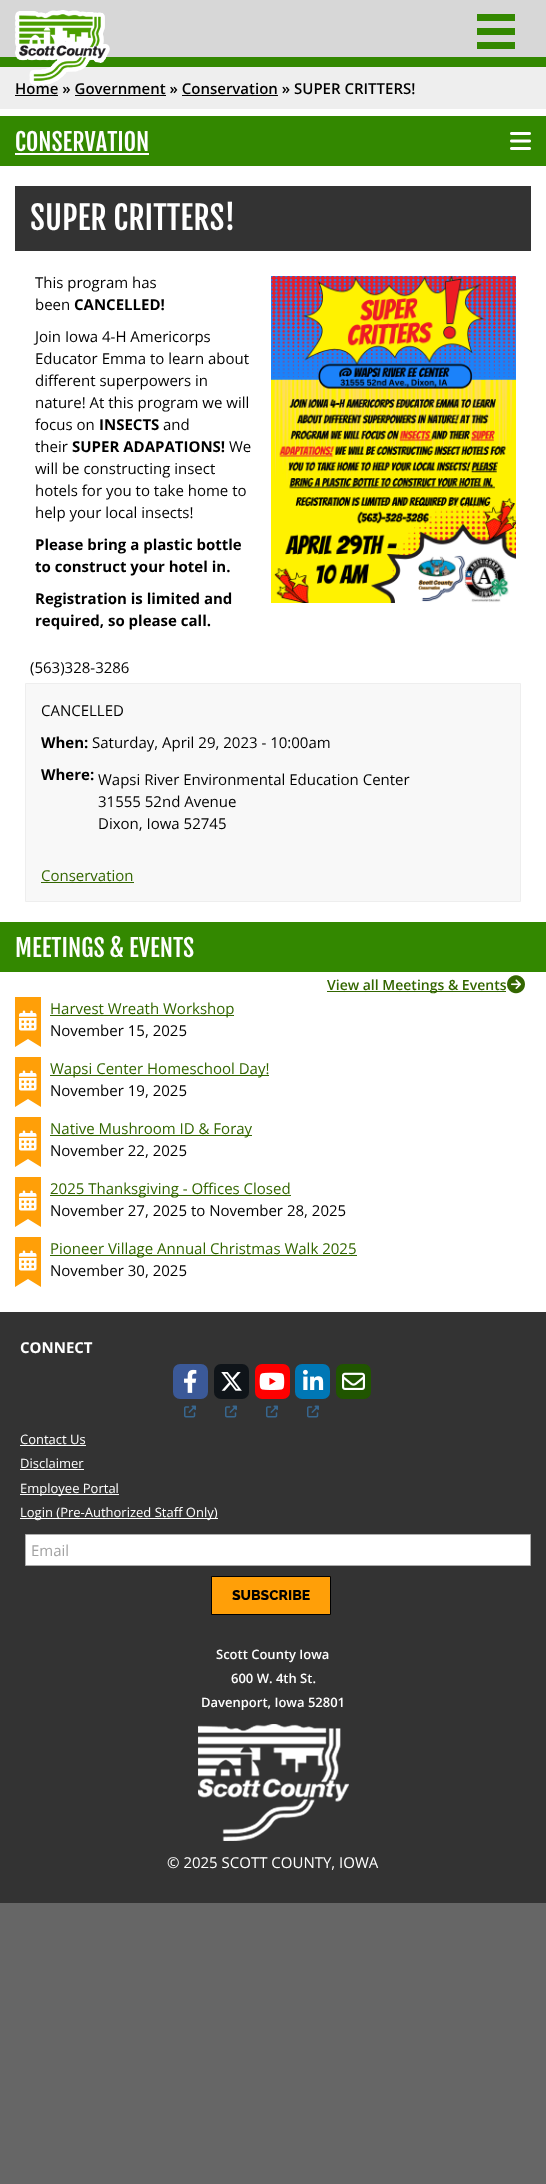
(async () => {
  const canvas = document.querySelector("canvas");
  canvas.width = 546;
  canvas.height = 2184;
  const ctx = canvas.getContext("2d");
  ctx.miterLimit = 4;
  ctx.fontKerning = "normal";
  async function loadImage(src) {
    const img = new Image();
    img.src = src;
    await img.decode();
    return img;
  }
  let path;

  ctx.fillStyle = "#666666";
  ctx.fillRect(0, 0, 546, 2184);
  for (const [x, y, w, h, color] of [
    [0, 57, 546, 10, "#338800"],
    [0, 0, 546, 57, "#d7d7d7"],
    [477, 14, 38, 7, "#338800"],
    [477, 28, 38, 7, "#338800"],
    [477, 42, 38, 7, "#338800"],
    [0, 109, 546, 1203, "#ffffff"],
    [0, 67, 546, 42, "#eeeeee"],
    [15, 95, 43, 1, "#000000"],
    [75, 95, 91, 1, "#000000"],
    [182, 95, 96, 1, "#000000"],
    [0, 116, 546, 50, "#338800"],
    [15, 153, 134, 2, "#ffffff"],
  ]) {
    ctx.fillStyle = color;
    ctx.fillRect(x, y, w, h);
  }
  ctx.drawImage(await loadImage("img/2.png"), 510, 132, 21, 18);
  ctx.fillStyle = "#333333";
  ctx.fillRect(15, 186, 516, 65);
  ctx.drawImage(await loadImage("img/3.png"), 271, 276, 245, 327);
  ctx.fillStyle = "#f8f8f8";
  ctx.beginPath();
  ctx.rect(25.5, 683.5, 495, 218);
  ctx.fill();
  ctx.strokeStyle = "#eeeeee";
  ctx.stroke();
  for (const [x, y, w, h, color] of [
    [41, 882, 93, 1, "#336600"],
    [0, 922, 546, 50, "#338800"],
    [327, 991, 179, 1, "#336600"],
  ]) {
    ctx.fillStyle = color;
    ctx.fillRect(x, y, w, h);
  }
  ctx.drawImage(await loadImage("img/4.png"), 507, 975, 18, 19);
  ctx.fillStyle = "#ff9f08";
  ctx.fillRect(15, 997, 26, 50);
  ctx.drawImage(await loadImage("img/5.png"), 19, 1010, 18, 21);
  ctx.fillStyle = "#ffffff";
  path = new Path2D("M41 1047H15L28 1039Z");
  ctx.fill(path);
  ctx.fillStyle = "#336600";
  ctx.fillRect(50, 1015, 184, 1);
  ctx.fillStyle = "#ff9f08";
  ctx.fillRect(15, 1057, 26, 50);
  ctx.drawImage(await loadImage("img/5.png"), 19, 1070, 18, 21);
  ctx.fillStyle = "#ffffff";
  path = new Path2D("M41 1107H15L28 1099Z");
  ctx.fill(path);
  ctx.fillStyle = "#336600";
  ctx.fillRect(50, 1075, 219, 1);
  ctx.fillStyle = "#ff9f08";
  ctx.fillRect(15, 1117, 26, 50);
  ctx.drawImage(await loadImage("img/5.png"), 19, 1130, 18, 21);
  ctx.fillStyle = "#ffffff";
  path = new Path2D("M41 1167H15L28 1159Z");
  ctx.fill(path);
  ctx.fillStyle = "#336600";
  ctx.fillRect(50, 1135, 202, 1);
  ctx.fillStyle = "#ff9f08";
  ctx.fillRect(15, 1177, 26, 50);
  ctx.drawImage(await loadImage("img/5.png"), 19, 1190, 18, 21);
  ctx.fillStyle = "#ffffff";
  path = new Path2D("M41 1227H15L28 1219Z");
  ctx.fill(path);
  ctx.fillStyle = "#336600";
  ctx.fillRect(50, 1195, 241, 1);
  ctx.fillStyle = "#ff9f08";
  ctx.fillRect(15, 1237, 26, 50);
  ctx.drawImage(await loadImage("img/5.png"), 19, 1250, 18, 21);
  ctx.fillStyle = "#ffffff";
  path = new Path2D("M41 1287H15L28 1279Z");
  ctx.fill(path);
  ctx.fillStyle = "#336600";
  ctx.fillRect(50, 1255, 307, 1);
  ctx.fillStyle = "#333333";
  ctx.fillRect(0, 1312, 546, 591);
  ctx.fillStyle = "#3b5998";
  ctx.beginPath();
  ctx.roundRect(173, 1364, 35, 35, 7);
  ctx.fill();
  ctx.drawImage(await loadImage("img/6.png"), 184, 1369, 13, 24);
  ctx.drawImage(await loadImage("img/7.png"), 184, 1405, 12, 13);
  ctx.fillStyle = "#0f1419";
  ctx.beginPath();
  ctx.roundRect(214, 1364, 35, 35, 7);
  ctx.fill();
  ctx.drawImage(await loadImage("img/8.png"), 221, 1372, 21, 19);
  ctx.drawImage(await loadImage("img/7.png"), 225, 1405, 12, 13);
  ctx.fillStyle = "#ff0000";
  ctx.beginPath();
  ctx.roundRect(255, 1364, 35, 35, 7);
  ctx.fill();
  ctx.drawImage(await loadImage("img/9.png"), 259, 1372, 26, 18);
  ctx.drawImage(await loadImage("img/7.png"), 266, 1405, 12, 13);
  ctx.fillStyle = "#0077b5";
  ctx.beginPath();
  ctx.roundRect(295, 1364, 35, 35, 7);
  ctx.fill();
  ctx.drawImage(await loadImage("img/10.png"), 303, 1369, 21, 21);
  ctx.drawImage(await loadImage("img/7.png"), 307, 1405, 12, 13);
  ctx.fillStyle = "#205500";
  ctx.beginPath();
  ctx.roundRect(336, 1364, 35, 35, 7);
  ctx.fill();
  ctx.drawImage(await loadImage("img/11.png"), 342, 1372, 23, 18);
  for (const [x, y, w, h, color] of [
    [20, 1445, 66, 1, "#ffffff"],
    [20, 1469, 64, 1, "#ffffff"],
    [20, 1494, 99, 1, "#ffffff"],
    [20, 1518, 198, 1, "#ffffff"],
  ]) {
    ctx.fillStyle = color;
    ctx.fillRect(x, y, w, h);
  }
  ctx.beginPath();
  ctx.rect(25.5, 1534.5, 505, 31);
  ctx.fill();
  ctx.strokeStyle = "#adadad";
  ctx.stroke();
  ctx.fillStyle = "#ff9f08";
  ctx.beginPath();
  ctx.rect(211.5, 1576.5, 119, 38);
  ctx.fill();
  ctx.strokeStyle = "#000000";
  ctx.stroke();
  ctx.drawImage(await loadImage("img/12.png"), 198, 1724, 151, 117);
  ctx.font = "600 15px Open Sans";
  ctx.fillStyle = "#000000";
  ctx.fillText("Home » Government » Conservation » SUPER CRITTERS!", 15, 94);
  ctx.drawImage(await loadImage("img/1.png"), 15, 10, 95, 75);
  ctx.font = "24px Fjalla One";
  ctx.fillStyle = "#ffffff";
  ctx.fillText("CONSERVATION", 15, 151);
  ctx.font = "32px Fjalla One";
  ctx.fillText("SUPER CRITTERS!", 30, 230);
  ctx.font = "15px Open Sans";
  ctx.fillStyle = "#000000";
  ctx.fillText("This program has", 35, 288);
  ctx.fillText("been", 35, 310);
  ctx.font = "bold 15px Open Sans";
  ctx.fillText("CANCELLED!", 74, 310);
  ctx.font = "15px Open Sans";
  for (const [text, x, y] of [
    ["Join Iowa 4-H Americorps", 35, 342],
    ["Educator Emma to learn about", 35, 364],
    ["different superpowers in", 35, 386],
    ["nature! At this program we will", 35, 408],
    ["focus on", 35, 430],
  ]) {
    ctx.fillText(text, x, y);
  }
  ctx.font = "bold 15px Open Sans";
  ctx.fillText("INSECTS", 99, 430);
  ctx.font = "15px Open Sans";
  ctx.fillText("and", 163, 430);
  ctx.fillText("their", 35, 452);
  ctx.font = "bold 15px Open Sans";
  ctx.fillText("SUPER ADAPATIONS!", 72, 452);
  ctx.font = "15px Open Sans";
  for (const [text, x, y] of [
    ["We", 229, 452],
    ["will be constructing insect", 35, 474],
    ["hotels for you to take home to", 35, 496],
    ["help your local insects!", 35, 518],
  ]) {
    ctx.fillText(text, x, y);
  }
  ctx.font = "bold 15px Open Sans";
  for (const [text, x, y] of [
    ["Please bring a plastic bottle", 35, 550],
    ["to construct your hotel in.", 35, 572],
    ["Registration is limited and", 35, 604],
    ["required, so please call.", 35, 626],
  ]) {
    ctx.fillText(text, x, y);
  }
  ctx.font = "15px Open Sans";
  ctx.fillText("(563)328-3286", 30, 673);
  ctx.fillText("CANCELLED", 41, 716);
  ctx.font = "bold 15px Open Sans";
  ctx.fillText("When:", 41, 748);
  ctx.font = "15px Open Sans";
  ctx.fillText("Saturday, April 29, 2023 - 10:00am", 92, 748);
  ctx.font = "bold 15px Open Sans";
  ctx.fillText("Where:", 41, 780);
  ctx.font = "15px Open Sans";
  for (const [text, x, y] of [
    ["Wapsi River Environmental Education Center", 98, 785],
    ["31555 52nd Avenue", 98, 807],
    ["Dixon, Iowa 52745", 98, 829],
  ]) {
    ctx.fillText(text, x, y);
  }
  ctx.fillStyle = "#336600";
  ctx.fillText("Conservation", 41, 881);
  ctx.font = "24px Fjalla One";
  ctx.fillStyle = "#ffffff";
  ctx.fillText("MEETINGS & EVENTS", 15, 957);
  ctx.font = "600 14px Open Sans";
  ctx.fillStyle = "#336600";
  ctx.fillText("View all Meetings & Events", 327, 990);
  ctx.font = "15px Open Sans";
  ctx.fillText("Harvest Wreath Workshop", 50, 1014);
  ctx.fillStyle = "#000000";
  ctx.fillText("November 15, 2025", 50, 1036);
  ctx.fillStyle = "#336600";
  ctx.fillText("Wapsi Center Homeschool Day!", 50, 1074);
  ctx.fillStyle = "#000000";
  ctx.fillText("November 19, 2025", 50, 1096);
  ctx.fillStyle = "#336600";
  ctx.fillText("Native Mushroom ID & Foray", 50, 1134);
  ctx.fillStyle = "#000000";
  ctx.fillText("November 22, 2025", 50, 1156);
  ctx.fillStyle = "#336600";
  ctx.fillText("2025 Thanksgiving - Offices Closed", 50, 1194);
  ctx.fillStyle = "#000000";
  ctx.fillText("November 27, 2025 to November 28, 2025", 50, 1216);
  ctx.fillStyle = "#336600";
  ctx.fillText("Pioneer Village Annual Christmas Walk 2025", 50, 1254);
  ctx.fillStyle = "#000000";
  ctx.fillText("November 30, 2025", 50, 1276);
  ctx.font = "bold 15px Open Sans";
  ctx.fillStyle = "#ffffff";
  ctx.fillText("CONNECT", 20, 1353);
  ctx.font = "13px Open Sans";
  for (const [text, x, y] of [
    ["Contact Us", 20, 1444],
    ["Disclaimer", 20, 1468],
    ["Employee Portal", 20, 1493],
    ["Login (Pre-Authorized Staff Only)", 20, 1517],
  ]) {
    ctx.fillText(text, x, y);
  }
  ctx.font = "15px Open Sans";
  ctx.fillStyle = "#a2a2a2";
  ctx.fillText("Email", 31, 1556);
  ctx.font = "800 14px Raleway";
  ctx.fillStyle = "#000000";
  ctx.fillText("SUBSCRIBE", 232, 1600);
  ctx.font = "600 13px Open Sans";
  ctx.fillStyle = "#ffffff";
  for (const [text, x, y] of [
    ["Scott County Iowa", 216, 1659],
    ["600 W. 4th St.", 231, 1683],
    ["Davenport, Iowa 52801", 201, 1707],
  ]) {
    ctx.fillText(text, x, y);
  }
  ctx.font = "15px Open Sans";
  ctx.fillText("© 2025 SCOTT COUNTY, IOWA", 167, 1868);
})();
